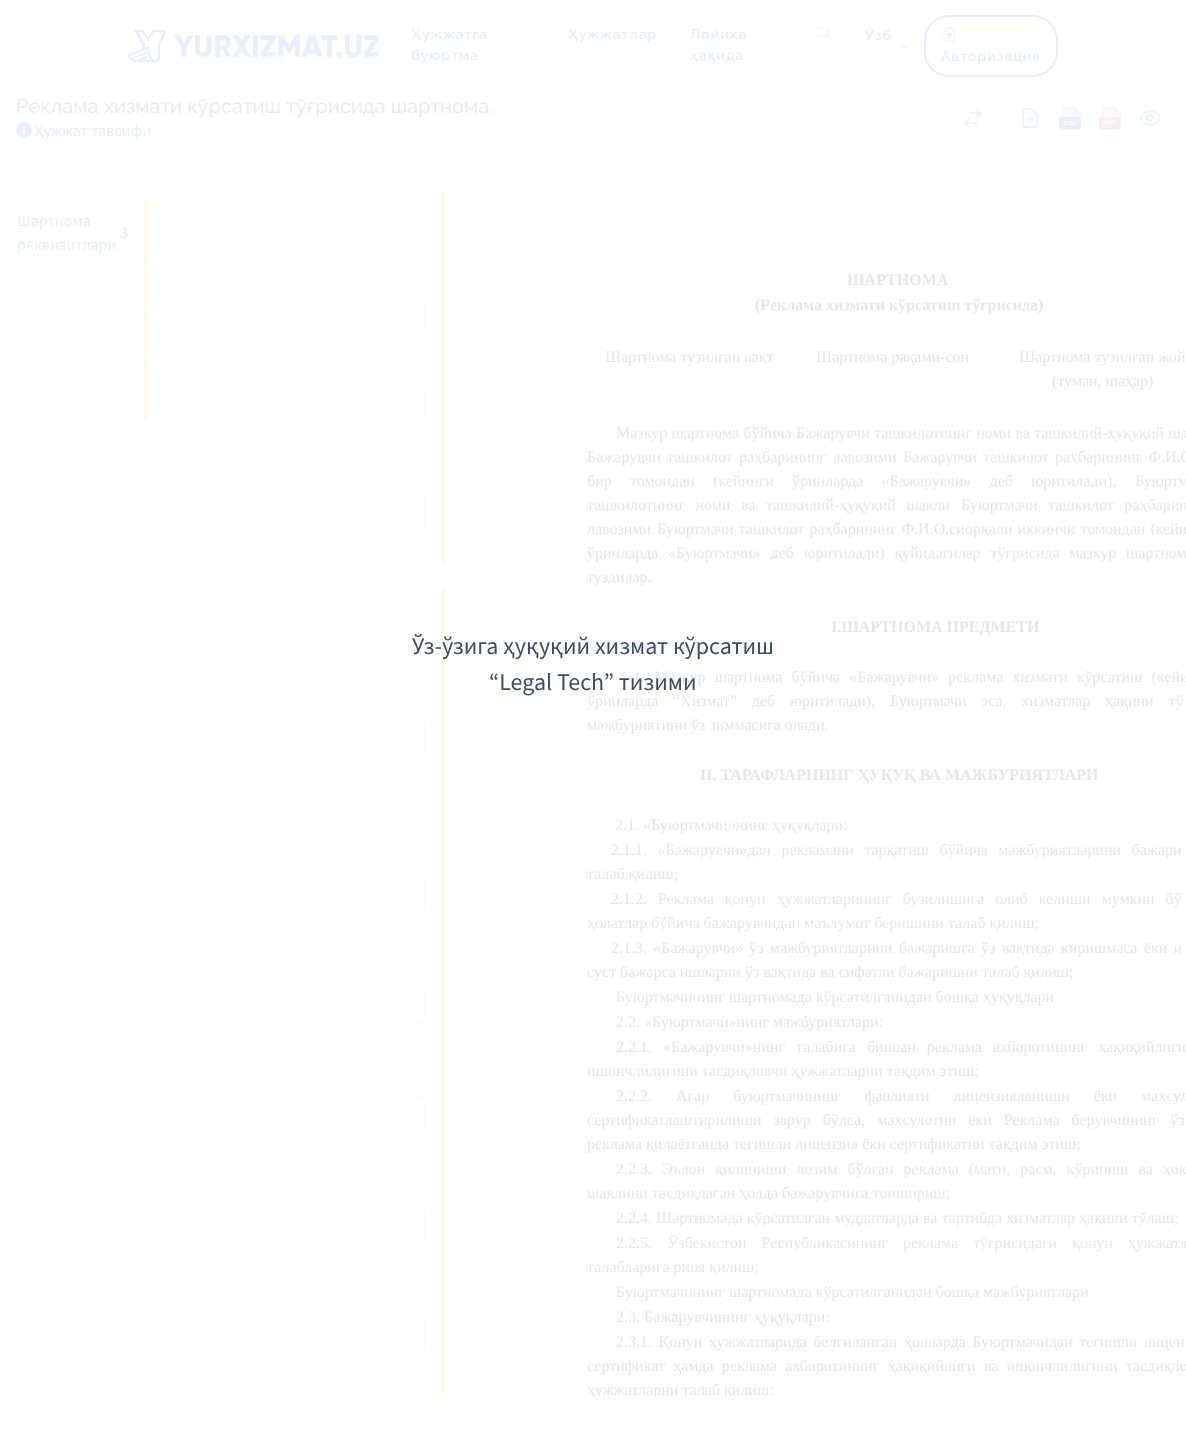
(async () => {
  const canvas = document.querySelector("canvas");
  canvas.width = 1186;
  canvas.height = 1456;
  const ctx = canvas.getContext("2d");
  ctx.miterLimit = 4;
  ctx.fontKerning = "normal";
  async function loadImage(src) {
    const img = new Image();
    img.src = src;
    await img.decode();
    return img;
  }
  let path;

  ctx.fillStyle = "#ffffff";
  ctx.fillRect(0, 0, 1186, 1456);
  ctx.fillStyle = "#fcfdfd";
  ctx.fillRect(0, 91, 1186, 1);
  ctx.drawImage(await loadImage("img/1.png"), 128, 30, 251, 32);
  ctx.drawImage(await loadImage("img/2.png"), 818, 26, 14, 15);
  ctx.fillStyle = "#e6eefa";
  path = new Path2D("M904.5 49L899.5 44L900.5 43.5L905.5 48.5Z");
  ctx.fill(path);
  path = new Path2D("M904.5 49L904 48.5L909 43.5L909.5 44Z");
  ctx.fill(path);
  ctx.beginPath();
  ctx.roundRect(925, 16, 132, 60, 24);
  ctx.strokeStyle = "#e6eefa";
  ctx.lineWidth = 2;
  ctx.stroke();
  ctx.drawImage(await loadImage("img/3.png"), 941, 27, 14, 15);
  ctx.drawImage(await loadImage("img/4.png"), 16, 122, 16, 16);
  ctx.drawImage(await loadImage("img/5.png"), 964, 108, 18, 20);
  ctx.drawImage(await loadImage("img/6.png"), 1022, 108, 16, 20);
  ctx.drawImage(await loadImage("img/7.png"), 1059, 106, 22, 24);
  ctx.drawImage(await loadImage("img/8.png"), 1099, 106, 22, 24);
  ctx.drawImage(await loadImage("img/9.png"), 1139, 110, 22, 16);
  for (const [x, y, w, h, color] of [
    [144, 200, 4, 64, "#fffae6"],
    [144, 268, 4, 40, "#fffae6"],
    [144, 312, 4, 40, "#fffae6"],
    [144, 356, 4, 64, "#fffae6"],
  ]) {
    ctx.fillStyle = color;
    ctx.fillRect(x, y, w, h);
  }
  path = new Path2D("M445 191V564L441 563V192Z");
  ctx.fill(path);
  ctx.fillStyle = "#fdfdfd";
  path = new Path2D("M445 564H173L174 563H441Z");
  ctx.fill(path);
  ctx.beginPath();
  ctx.roundRect(190.5, 297.5, 234, 37, 3.5);
  ctx.strokeStyle = "#fafbfb";
  ctx.lineWidth = 1;
  ctx.stroke();
  ctx.beginPath();
  ctx.roundRect(190.5, 383.5, 234, 37, 3.5);
  ctx.stroke();
  ctx.beginPath();
  ctx.roundRect(190.5, 493.5, 234, 37, 3.5);
  ctx.stroke();
  ctx.save();
  ctx.beginPath();
  ctx.rect(149, 191, 320, 1206);
  ctx.clip();
  ctx.fillStyle = "#fffae6";
  path = new Path2D("M445 588V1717L441 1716V589Z");
  ctx.fill(path);
  ctx.restore();
  ctx.beginPath();
  ctx.roundRect(190.5, 718.5, 234, 37, 3.5);
  ctx.stroke();
  ctx.beginPath();
  ctx.roundRect(190.5, 876.5, 234, 37, 3.5);
  ctx.stroke();
  ctx.beginPath();
  ctx.roundRect(190.5, 986.5, 234, 37, 3.5);
  ctx.stroke();
  ctx.beginPath();
  ctx.roundRect(190.5, 1096.5, 234, 37, 3.5);
  ctx.stroke();
  ctx.beginPath();
  ctx.roundRect(190.5, 1206.5, 234, 37, 3.5);
  ctx.stroke();
  ctx.beginPath();
  ctx.roundRect(190.5, 1316.5, 234, 37, 3.5);
  ctx.stroke();
  ctx.letterSpacing = "1px";
  ctx.font = "600 14px Raleway";
  ctx.fillStyle = "#e6eefa";
  for (const [text, x, y] of [
    ["Ҳужжатга", 411, 39],
    ["буюртма", 411, 60],
    ["Ҳужжатлар", 568, 39],
    ["Лойиҳа", 690, 39],
    ["ҳақида", 690, 60],
    ["Ўзб", 865, 40],
    ["Авторизация", 941, 61],
  ]) {
    ctx.fillText(text, x, y);
  }
  ctx.letterSpacing = "0px";
  ctx.font = "500 20px Raleway";
  ctx.fillStyle = "#e9ebee";
  ctx.fillText("Реклама хизмати кўрсатиш тўғрисида шартнома.", 16, 113);
  ctx.font = "16px Source Sans Pro";
  ctx.fillStyle = "#e6eefa";
  for (const [text, x, y] of [
    ["Ҳужжат тавсифи", 35, 136],
    ["Шартнома", 17, 226],
    ["реквизитлари", 17, 250],
    ["3", 120, 238],
  ]) {
    ctx.fillText(text, x, y);
  }
  ctx.font = "bold 16px Liberation Serif";
  ctx.fillStyle = "#e6e6e6";
  ctx.fillText("ШАРТНОМА", 847, 285);
  ctx.fillText("(Реклама хизмати кўрсатиш тўғрисида)", 755, 310);
  ctx.font = "16px Liberation Serif";
  for (const [text, x, y] of [
    ["Шартнома тузилган вақт", 605, 362],
    ["Шартнома рақами-сон", 816, 362],
    ["Шартнома тузилган жой", 1019, 362],
    ["(туман, шаҳар)", 1052, 386],
  ]) {
    ctx.fillText(text, x, y);
  }
  ctx.wordSpacing = "0.25px";
  ctx.fillText("Мазкур шартнома бўйича Бажарувчи ташкилотнинг номи ва ташкилий-ҳуқуқий ша", 616, 438);
  ctx.wordSpacing = "2.25px";
  ctx.fillText("Бажарувчи ташкилот раҳбарининг лавозими", 587, 462);
  ctx.fillText("Бажарувчи ташкилот раҳбарининг Ф.И.О", 903, 462);
  ctx.wordSpacing = "14.25px";
  ctx.fillText("бир томондан (кейинги ўринларда «Бажарувчи» деб юритилади),", 587, 486);
  ctx.wordSpacing = "0px";
  ctx.fillText("Буюртм", 1135, 486);
  ctx.wordSpacing = "6.5px";
  ctx.fillText("ташкилотнинг номи ва ташкилий-ҳуқуқий шакли", 587, 510);
  ctx.fillText("Буюртмачи ташкилот раҳбарин", 961, 510);
  ctx.wordSpacing = "0px";
  ctx.fillText("лавозими", 587, 534);
  ctx.wordSpacing = "1px";
  ctx.fillText("Буюртмачи ташкилот раҳбарининг Ф.И.О.си", 657, 534);
  ctx.fillText("орқали иккинчи томондан (кейи", 965, 534);
  ctx.wordSpacing = "5.75px";
  ctx.fillText("ўринларда «Буюртмачи» деб юритилади) қуйидагилар тўғрисида мазкур шартном", 587, 558);
  ctx.wordSpacing = "0px";
  ctx.fillText("туздилар.", 587, 582);
  ctx.font = "bold 16px Liberation Serif";
  ctx.fillText("I.ШАРТНОМА ПРЕДМЕТИ", 831, 632);
  ctx.wordSpacing = "5.25px";
  ctx.font = "16px Liberation Serif";
  ctx.fillText("1.1. Мазкур шартнома бўйича «Бажарувчи» реклама хизмати кўрсатиш (кейи", 621, 682);
  ctx.wordSpacing = "10.75px";
  ctx.fillText("ўринларда “Хизмат” деб юритилади), Буюртмачи эса, хизматлар ҳақини тў", 587, 706);
  ctx.wordSpacing = "0px";
  ctx.fillText("мажбуриятини ўз зиммасига олади.", 587, 730);
  ctx.font = "bold 16px Liberation Serif";
  ctx.fillText("II. ТАРАФЛАРНИНГ ҲУҚУҚ ВА МАЖБУРИЯТЛАРИ", 700, 780);
  ctx.font = "16px Liberation Serif";
  ctx.fillText("2.1. «Буюртмачи»нинг ҳуқуқлари:", 615, 830);
  ctx.wordSpacing = "6.5px";
  ctx.fillText("2.1.1. «Бажарувчи»дан рекламани тарқатиш бўйича мажбуриятларини бажари", 611, 855);
  ctx.wordSpacing = "0px";
  ctx.fillText("талаб қилиш;", 587, 879);
  ctx.wordSpacing = "7px";
  ctx.fillText("2.1.2. Реклама қонун ҳужжатларининг бузилишига олиб келиши мумкин бў", 611, 904);
  ctx.wordSpacing = "0px";
  ctx.fillText("ҳолатлар бўйича бажарувчидан маълумот беришини талаб қилиш;", 587, 928);
  ctx.wordSpacing = "2.25px";
  ctx.fillText("2.1.3. «Бажарувчи» ўз мажбуриятларини бажаришга ўз вақтида киришмаса ёки и", 611, 953);
  ctx.wordSpacing = "0px";
  for (const [text, x, y] of [
    ["суст бажарса ишларни ўз вақтида ва сифатли бажаришни талаб қилиш;", 587, 977],
    ["Буюртмачининг шартномада кўрсатилганидан бошқа ҳуқуқлари", 616, 1002],
    ["2.2. «Буюртмачи»нинг мажбуриятлари:", 616, 1027],
  ]) {
    ctx.fillText(text, x, y);
  }
  ctx.wordSpacing = "7px";
  ctx.fillText("2.2.1. «Бажарувчи»нинг талабига биноан реклама ахборотининг ҳақиқийлиги", 616, 1052);
  ctx.wordSpacing = "0px";
  ctx.fillText("ишончлилигини тасдиқловчи ҳужжатларни тақдим этиш;", 587, 1076);
  ctx.wordSpacing = "20px";
  ctx.fillText("2.2.2. Агар буюртмачининг фаолияти лицензияланиши ёки маҳсул", 616, 1101);
  ctx.wordSpacing = "8px";
  ctx.fillText("сертификатлаштирилиши зарур бўлса, маҳсулотни ёки Реклама берувчининг ўз", 587, 1125);
  ctx.wordSpacing = "0px";
  ctx.fillText("реклама қилаётганда тегишли лицензия ёки сертификатни тақдим этиш;", 587, 1149);
  ctx.wordSpacing = "6px";
  ctx.fillText("2.2.3. Эълон қилиниши лозим бўлган реклама (матн, расм, кўриниш ва ҳок", 616, 1174);
  ctx.wordSpacing = "0px";
  ctx.fillText("шаклини тасдиқлаган ҳолда бажарувчига топшириш;", 587, 1198);
  ctx.fillText("2.2.4. Шартномада кўрсатилган муддатларда ва тартибда хизматлар ҳақини тўлаш;", 616, 1223);
  ctx.wordSpacing = "11px";
  ctx.fillText("2.2.5. Ўзбекистон Республикасининг реклама тўғрисидаги қонун ҳужжатл", 616, 1248);
  ctx.wordSpacing = "0px";
  for (const [text, x, y] of [
    ["талабларига риоя қилиш;", 587, 1272],
    ["Буюртмачининг шартномада кўрсатилганидан бошқа мажбуриятлари", 616, 1297],
    ["2.3. Бажарувчининг ҳуқуқлари:", 616, 1322],
  ]) {
    ctx.fillText(text, x, y);
  }
  ctx.wordSpacing = "2.5px";
  ctx.fillText("2.3.1. Қонун ҳужжатларида белгиланган ҳолларда Буюртмачидан тегишли лицен", 616, 1347);
  ctx.wordSpacing = "4.25px";
  ctx.fillText("сертификат ҳамда реклама ахборотининг ҳақиқийлиги ва ишончлилигини тасдиқло", 587, 1371);
  ctx.save();
  ctx.beginPath();
  ctx.rect(486, 192, 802, 1204);
  ctx.clip();
  ctx.wordSpacing = "0px";
  ctx.fillText("ҳужжатларни талаб қилиш;", 587, 1395);
  ctx.restore();
  ctx.wordSpacing = "0px";
  ctx.font = "24px Source Sans Pro";
  ctx.fillStyle = "#3c4d69";
  ctx.fillText("Ўз-ўзига ҳуқуқий хизмат кўрсатиш", 412, 654);
  ctx.fillText("“Legal Tech” тизими", 489, 690);
})();
